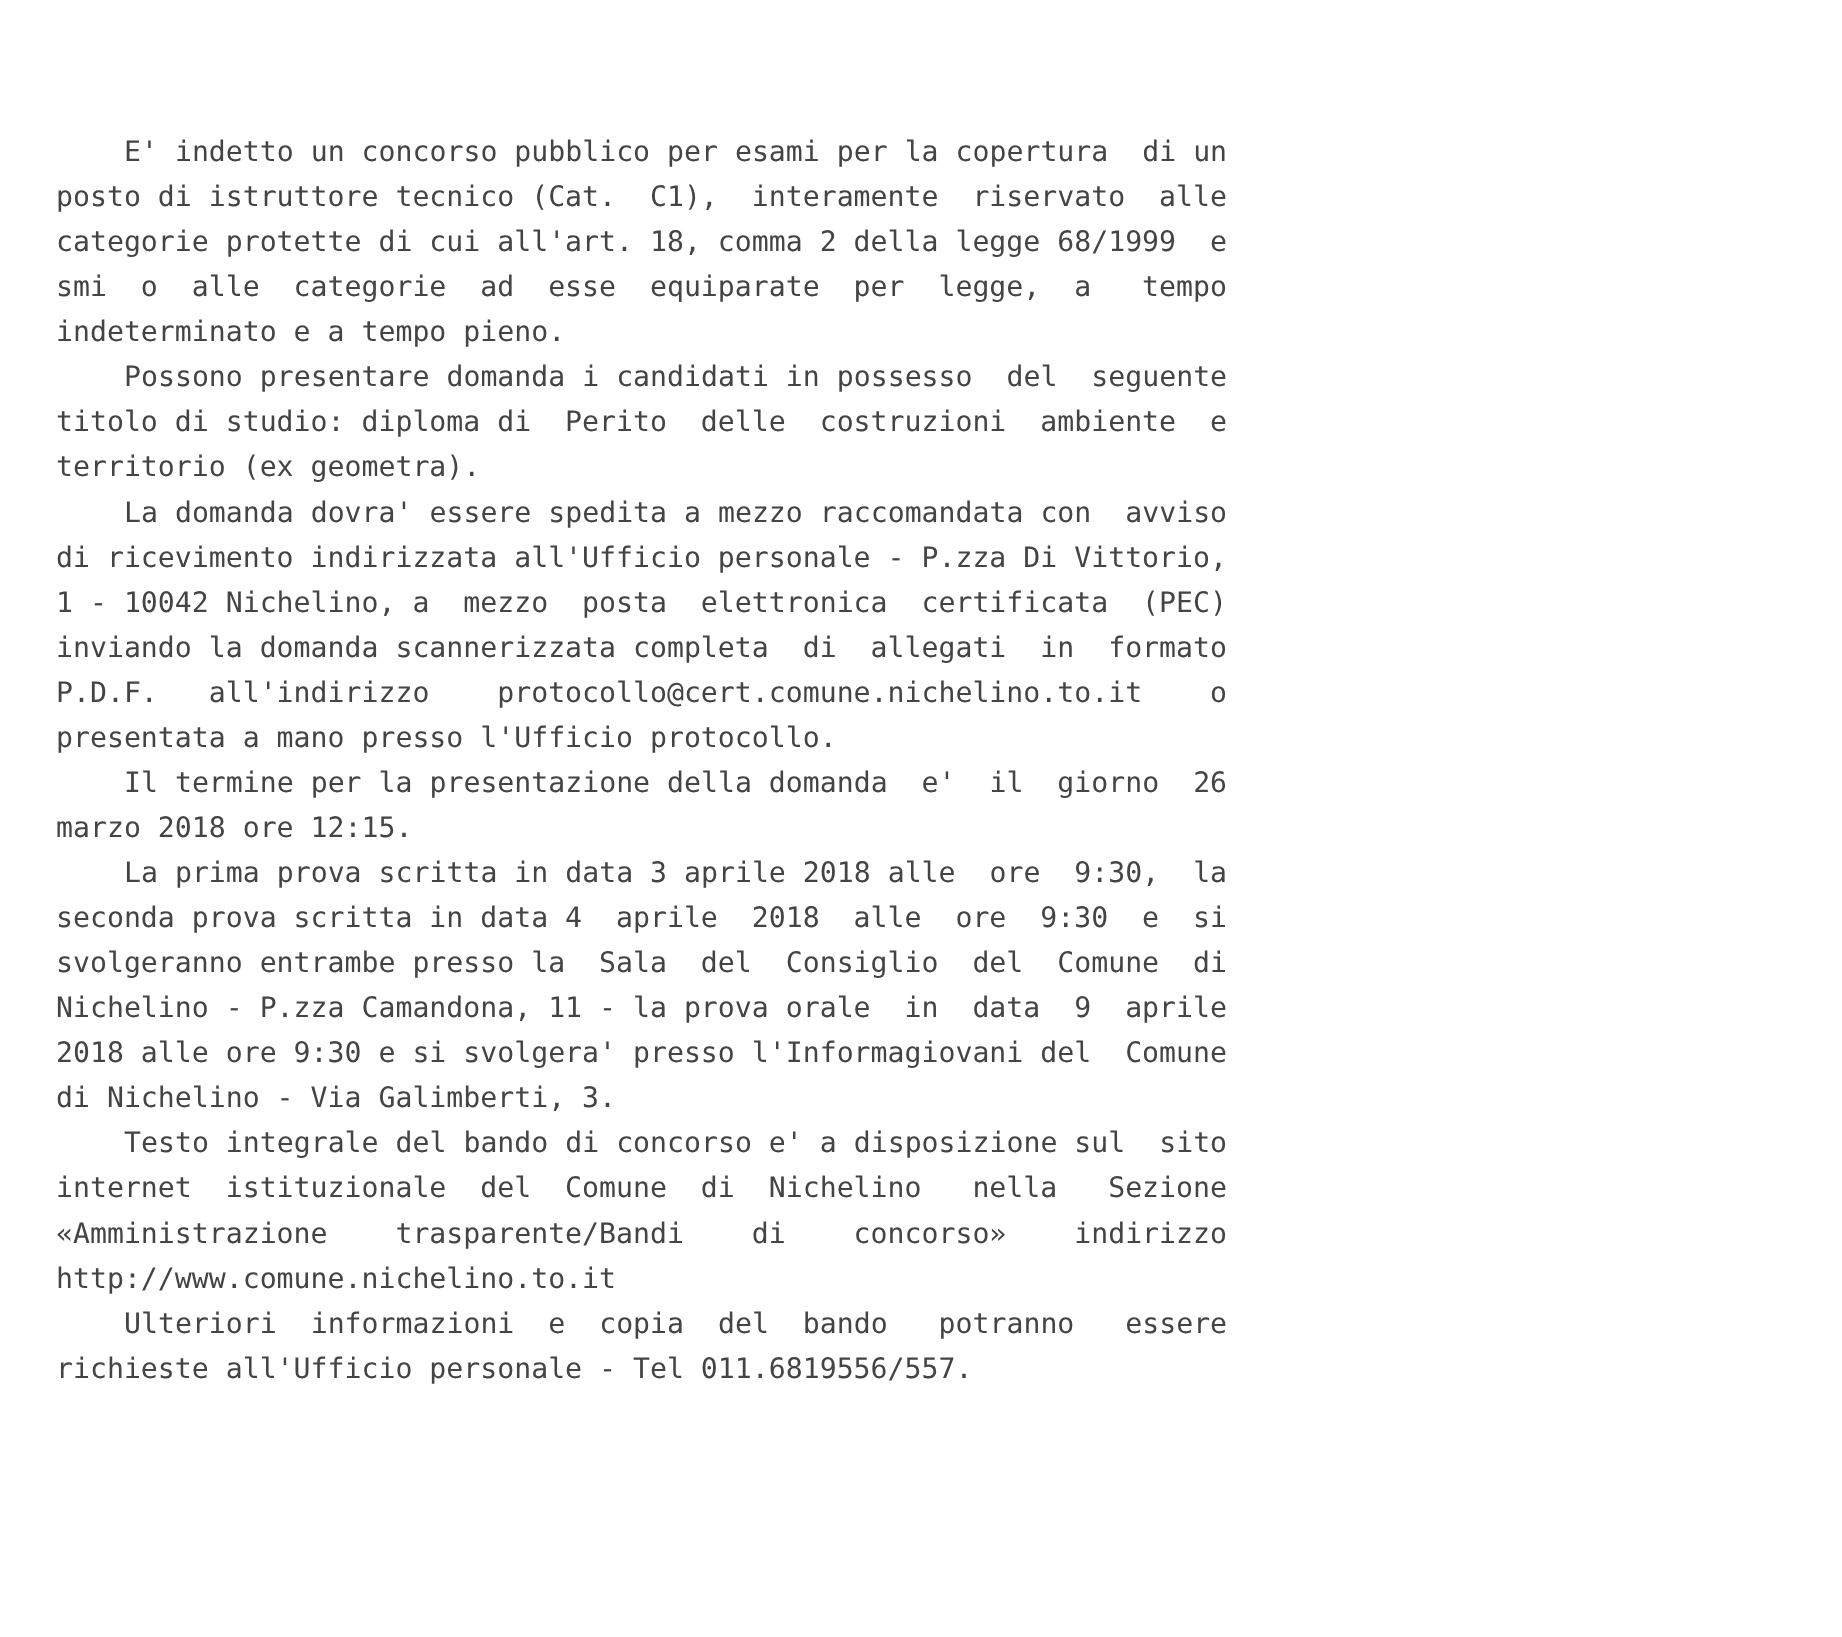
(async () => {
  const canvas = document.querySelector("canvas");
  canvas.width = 1842;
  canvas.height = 1637;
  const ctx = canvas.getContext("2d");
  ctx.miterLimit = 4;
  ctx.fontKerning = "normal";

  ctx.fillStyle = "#ffffff";
  ctx.fillRect(0, 0, 1842, 1637);
  ctx.font = "28.2px DejaVu Sans Mono";
  ctx.fillStyle = "#444444";
  for (const [text, x, y] of [
    ["E' indetto un concorso pubblico per esami per la copertura  di un", 124, 161],
    ["posto di istruttore tecnico (Cat.  C1),  interamente  riservato  alle", 56, 206],
    ["categorie protette di cui all'art. 18, comma 2 della legge 68/1999  e", 56, 251],
    ["smi  o  alle  categorie  ad  esse  equiparate  per  legge,  a   tempo", 56, 296],
    ["indeterminato e a tempo pieno.", 56, 341],
    ["Possono presentare domanda i candidati in possesso  del  seguente", 124, 386],
    ["titolo di studio: diploma di  Perito  delle  costruzioni  ambiente  e", 56, 431],
    ["territorio (ex geometra).", 56, 476],
    ["La domanda dovra' essere spedita a mezzo raccomandata con  avviso", 124, 522],
    ["di ricevimento indirizzata all'Ufficio personale - P.zza Di Vittorio,", 56, 567],
    ["1 - 10042 Nichelino, a  mezzo  posta  elettronica  certificata  (PEC)", 56, 612],
    ["inviando la domanda scannerizzata completa  di  allegati  in  formato", 56, 657],
    ["P.D.F.   all'indirizzo    protocollo@cert.comune.nichelino.to.it    o", 56, 702],
    ["presentata a mano presso l'Ufficio protocollo.", 56, 747],
    ["Il termine per la presentazione della domanda  e'  il  giorno  26", 124, 792],
    ["marzo 2018 ore 12:15.", 56, 837],
    ["La prima prova scritta in data 3 aprile 2018 alle  ore  9:30,  la", 124, 882],
    ["seconda prova scritta in data 4  aprile  2018  alle  ore  9:30  e  si", 56, 927],
    ["svolgeranno entrambe presso la  Sala  del  Consiglio  del  Comune  di", 56, 972],
    ["Nichelino - P.zza Camandona, 11 - la prova orale  in  data  9  aprile", 56, 1017],
    ["2018 alle ore 9:30 e si svolgera' presso l'Informagiovani del  Comune", 56, 1062],
    ["di Nichelino - Via Galimberti, 3.", 56, 1107],
    ["Testo integrale del bando di concorso e' a disposizione sul  sito", 124, 1152],
    ["internet  istituzionale  del  Comune  di  Nichelino   nella   Sezione", 56, 1197],
    ["«Amministrazione    trasparente/Bandi    di    concorso»    indirizzo", 56, 1243],
    ["http://www.comune.nichelino.to.it", 56, 1288],
    ["Ulteriori  informazioni  e  copia  del  bando   potranno   essere", 124, 1333],
    ["richieste all'Ufficio personale - Tel 011.6819556/557.", 56, 1378],
  ]) {
    ctx.fillText(text, x, y);
  }
})();
